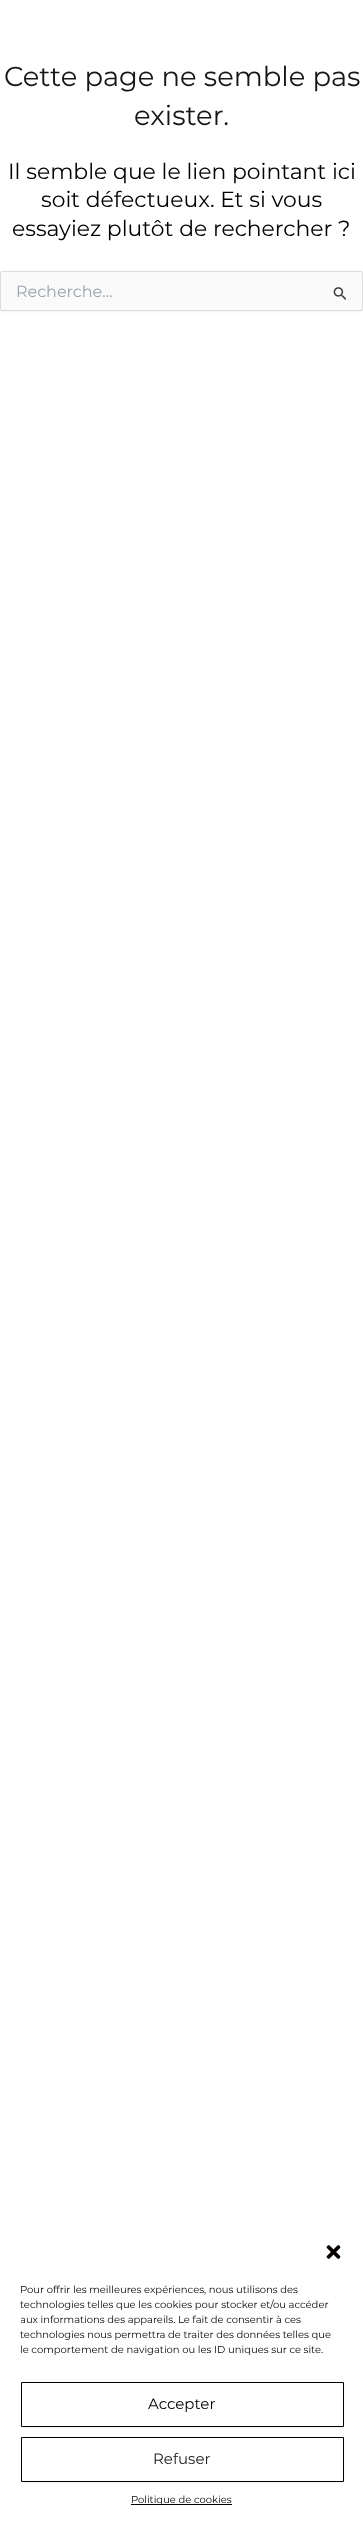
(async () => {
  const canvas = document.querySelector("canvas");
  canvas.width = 363;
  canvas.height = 2523;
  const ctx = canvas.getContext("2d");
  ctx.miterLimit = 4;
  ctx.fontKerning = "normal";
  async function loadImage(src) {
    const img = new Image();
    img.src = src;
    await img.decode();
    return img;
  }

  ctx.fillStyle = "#ffffff";
  ctx.fillRect(0, 0, 363, 2523);
  ctx.fillStyle = "rgba(0, 0, 0, 0.05)";
  ctx.filter = "blur(1px)";
  ctx.beginPath();
  ctx.roundRect(0, 272, 363, 40, 2);
  ctx.fill();
  ctx.filter = "none";
  ctx.fillStyle = "#fafafa";
  ctx.beginPath();
  ctx.roundRect(0.5, 271.5, 362, 39, 1.5);
  ctx.fill();
  ctx.strokeStyle = "#dddddd";
  ctx.stroke();
  ctx.drawImage(await loadImage("img/1.png"), 333, 287, 13, 13);
  ctx.fillStyle = "#eaeaea";
  ctx.fillRect(0, 2422, 1, 1);
  ctx.drawImage(await loadImage("img/2.png"), 326, 2245, 15, 14);
  ctx.fillStyle = "rgba(0, 0, 0, 0.05)";
  ctx.filter = "blur(1px)";
  ctx.beginPath();
  ctx.rect(21, 2383, 323, 45);
  ctx.fill();
  ctx.filter = "none";
  ctx.fillStyle = "#ffffff";
  ctx.beginPath();
  ctx.rect(21.5, 2382.5, 322, 44);
  ctx.fill();
  ctx.strokeStyle = "#000000";
  ctx.stroke();
  ctx.fillStyle = "rgba(0, 0, 0, 0.05)";
  ctx.filter = "blur(1px)";
  ctx.beginPath();
  ctx.rect(21, 2438, 323, 45);
  ctx.fill();
  ctx.filter = "none";
  ctx.fillStyle = "#ffffff";
  ctx.beginPath();
  ctx.rect(21.5, 2437.5, 322, 44);
  ctx.fill();
  ctx.stroke();
  ctx.fillStyle = "#020000";
  ctx.fillRect(131, 2504, 101, 1);
  ctx.font = "27.4px Montserrat";
  ctx.fillStyle = "#151616";
  ctx.fillText("Cette page ne semble pas", 4, 86);
  ctx.fillText("exister.", 134, 125);
  ctx.font = "21.9px Montserrat";
  ctx.fillStyle = "#000000";
  for (const [text, x, y] of [
    ["Il semble que le lien pointant ici", 8, 179],
    ["soit défectueux. Et si vous", 41, 207],
    ["essayiez plutôt de rechercher ?", 12, 236],
  ]) {
    ctx.fillText(text, x, y);
  }
  ctx.font = "16px Montserrat";
  ctx.fillStyle = "#9ca3af";
  ctx.fillText("Recherche…", 16, 297);
  ctx.font = "10px Montserrat";
  ctx.fillStyle = "#060000";
  ctx.fillText("Pour offrir les meilleures expériences, nous utilisons des", 20, 2293);
  ctx.fillText("technologies telles que les cookies pour stocker et/ou accéder", 20, 2308);
  ctx.save();
  ctx.beginPath();
  ctx.rect(21, 2282, 323, 80);
  ctx.clip();
  ctx.fillText("aux informations des appareils. Le fait de consentir à ces", 20, 2323);
  ctx.restore();
  ctx.fillText("technologies nous permettra de traiter des données telles que", 20, 2338);
  ctx.fillText("le comportement de navigation ou les ID uniques sur ce site.", 20, 2353);
  ctx.font = "15px Montserrat";
  ctx.fillStyle = "#000000";
  ctx.fillText("Accepter", 148, 2409);
  ctx.fillStyle = "#222222";
  ctx.fillText("Refuser", 153, 2464);
  ctx.font = "10px Montserrat";
  ctx.fillStyle = "#000000";
  ctx.fillText("Politique de cookies", 131, 2503);
})();
